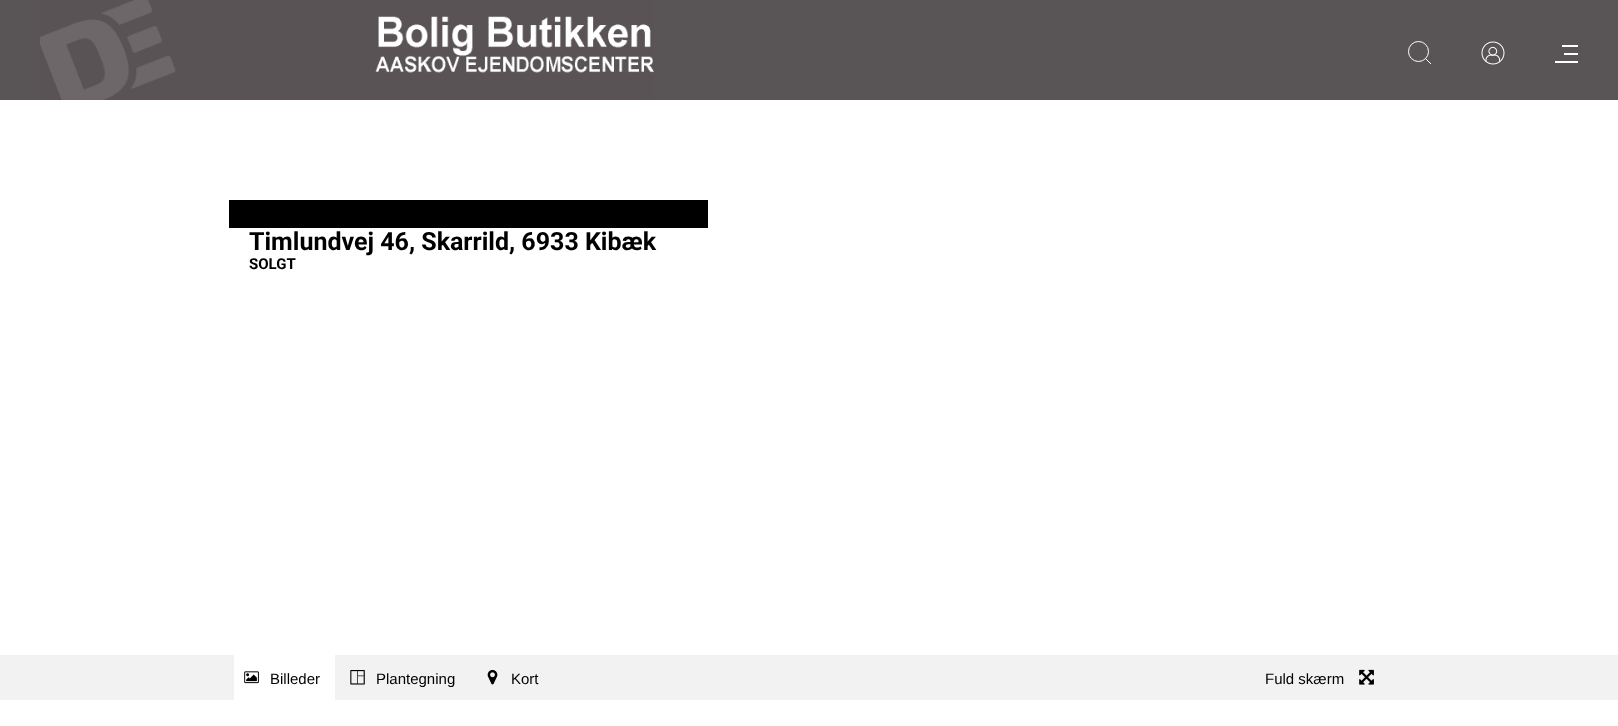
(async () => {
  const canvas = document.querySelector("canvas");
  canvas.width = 1618;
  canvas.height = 726;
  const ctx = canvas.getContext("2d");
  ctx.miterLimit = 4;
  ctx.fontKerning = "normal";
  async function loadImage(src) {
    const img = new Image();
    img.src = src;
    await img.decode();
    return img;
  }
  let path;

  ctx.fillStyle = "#ffffff";
  ctx.fillRect(0, 0, 1618, 726);
  ctx.fillStyle = "#595456";
  ctx.fillRect(0, 0, 1618, 100);
  ctx.drawImage(await loadImage("img/1.png"), 40, 0, 614, 100);
  ctx.beginPath();
  ctx.arc(1418.5, 51.5, 10, 0, Math.PI * 2);
  ctx.strokeStyle = "#ffffff";
  ctx.stroke();
  path = new Path2D("M1431 64L1425.5 58.5");
  ctx.stroke(path);
  ctx.drawImage(await loadImage("img/2.png"), 1481, 41, 24, 24);
  for (const [x, y, w, h, color] of [
    [1562, 45, 16, 2, "#ffffff"],
    [1564, 53, 14, 2, "#ffffff"],
    [1555, 61, 23, 2, "#ffffff"],
    [229, 200, 479, 28, "#000000"],
    [0, 655, 1618, 45, "#f2f2f2"],
    [234, 655, 101, 45, "#ffffff"],
  ]) {
    ctx.fillStyle = color;
    ctx.fillRect(x, y, w, h);
  }
  ctx.drawImage(await loadImage("img/3.png"), 244, 671, 15, 13);
  ctx.drawImage(await loadImage("img/4.png"), 350, 670, 15, 15);
  ctx.drawImage(await loadImage("img/5.png"), 487, 669, 11, 16);
  ctx.drawImage(await loadImage("img/6.png"), 1359, 669, 15, 16);
  ctx.font = "bold 25px Roboto";
  ctx.fillStyle = "#000000";
  ctx.fillText("Timlundvej 46, Skarrild, 6933 Kibæk", 249, 250);
  ctx.font = "bold 15px Roboto";
  ctx.fillText("SOLGT", 249, 269);
  ctx.font = "15px Liberation Sans";
  for (const [text, x, y] of [
    ["Billeder", 270, 684],
    ["Plantegning", 376, 684],
    ["Kort", 511, 684],
    ["Fuld skærm", 1265, 684],
  ]) {
    ctx.fillText(text, x, y);
  }
})();
